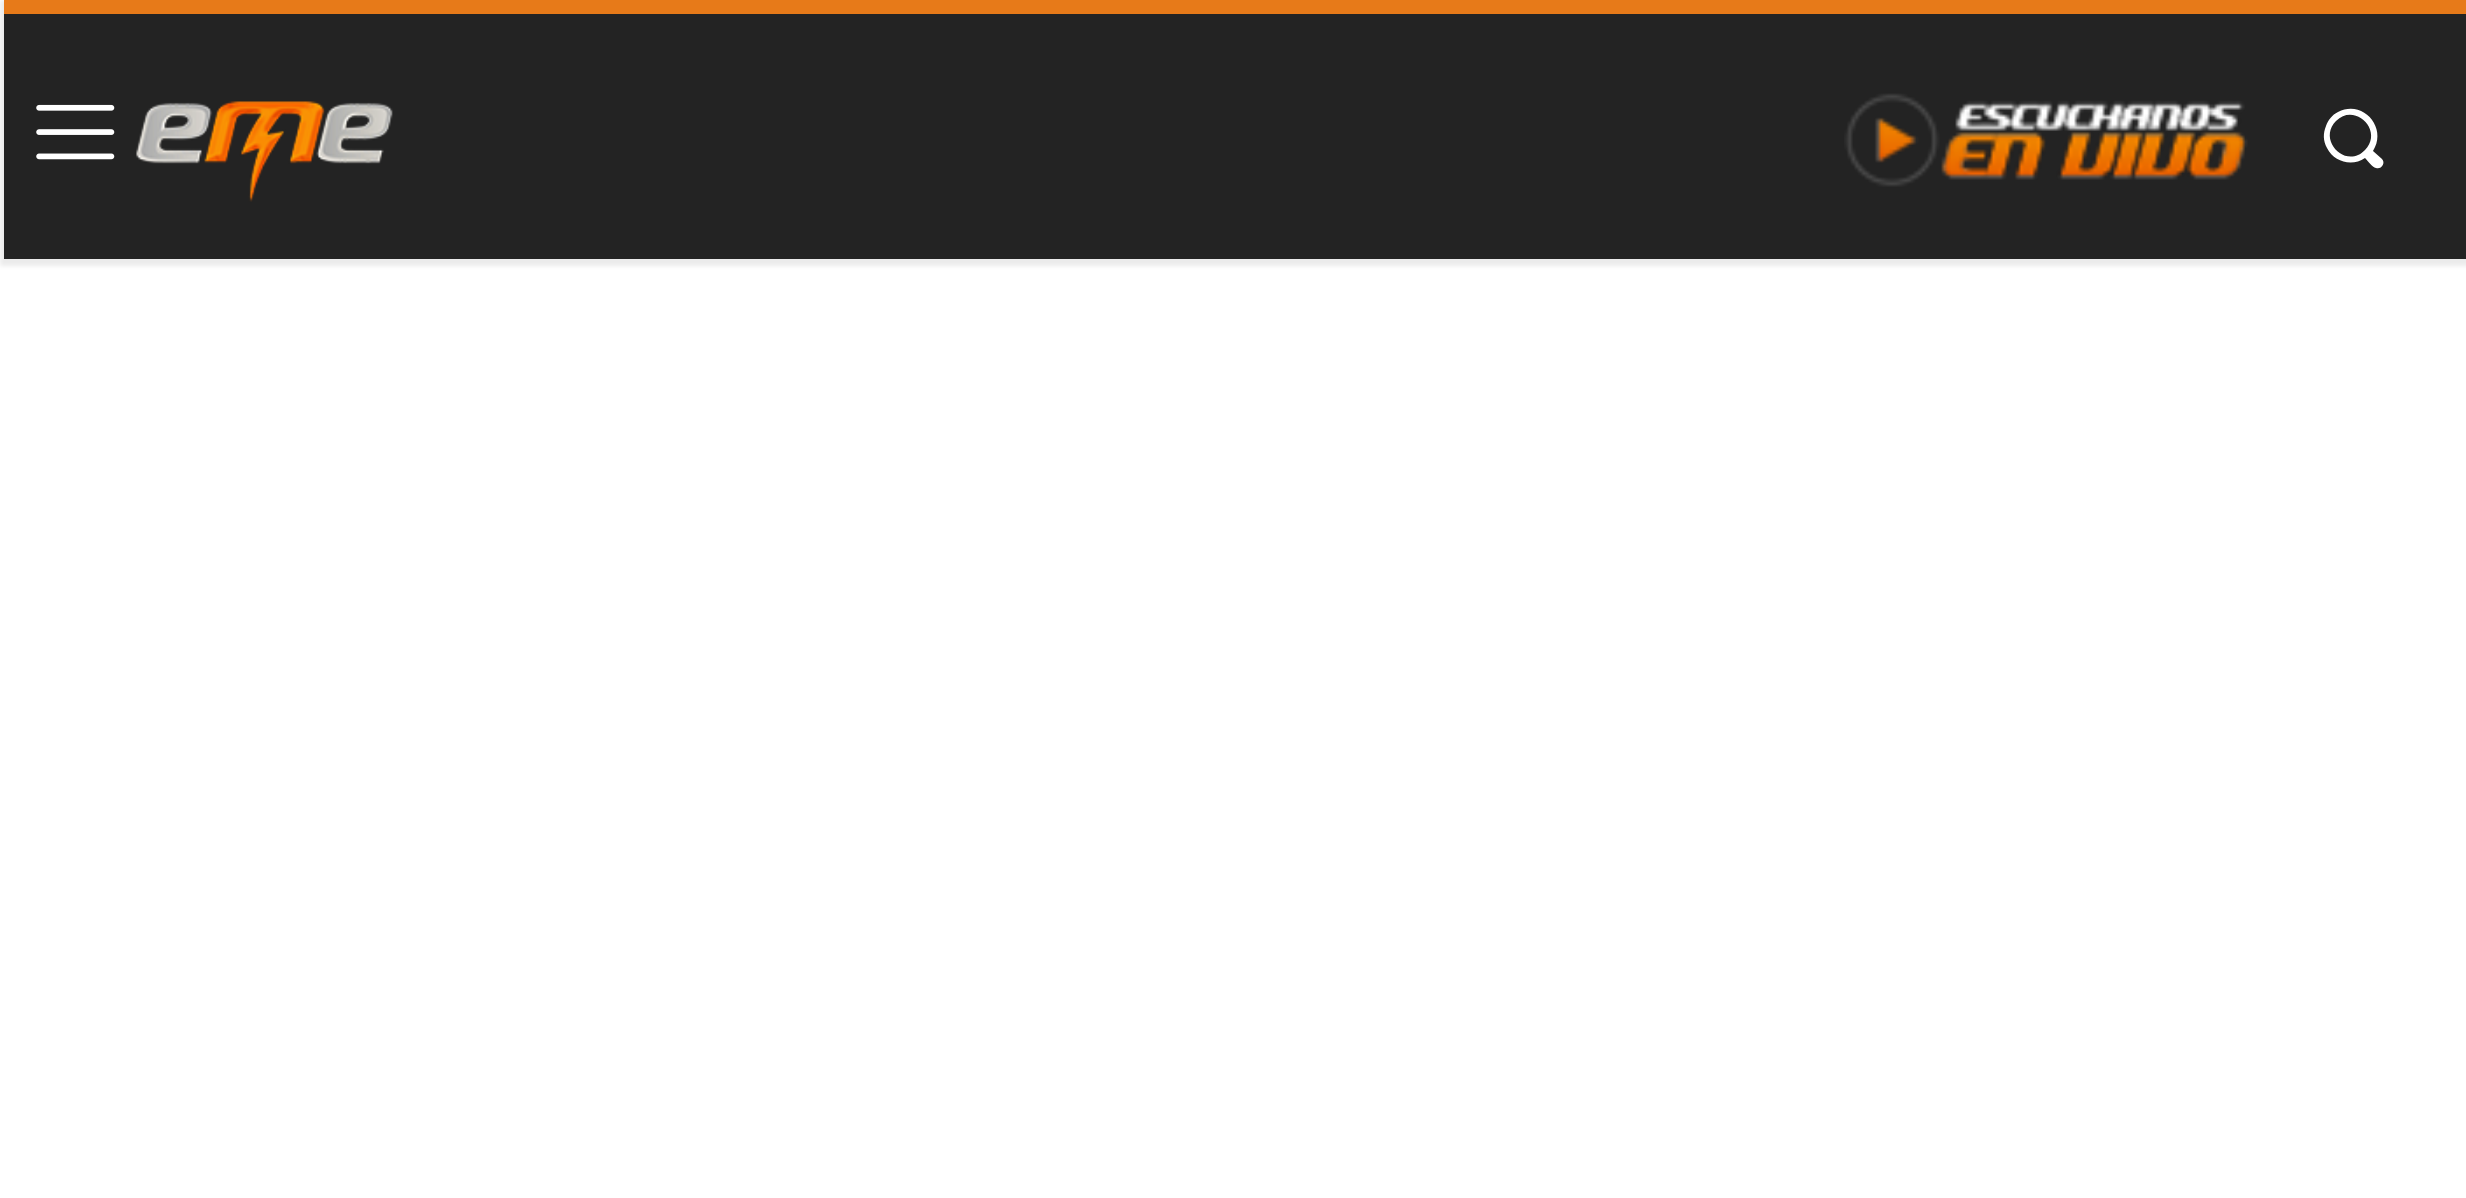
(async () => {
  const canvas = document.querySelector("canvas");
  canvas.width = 2466;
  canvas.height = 1198;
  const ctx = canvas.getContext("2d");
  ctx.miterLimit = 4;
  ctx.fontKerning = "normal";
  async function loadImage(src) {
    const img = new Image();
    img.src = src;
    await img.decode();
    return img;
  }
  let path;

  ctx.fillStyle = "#ffffff";
  ctx.fillRect(0, 0, 2466, 1198);
  ctx.fillStyle = "#e77a19";
  ctx.fillRect(4, 0, 2462, 14);
  ctx.fillStyle = "#232323";
  ctx.fillRect(4, 14, 2462, 245);
  ctx.drawImage(await loadImage("img/1.png"), 36, 104, 79, 56);
  ctx.drawImage(await loadImage("img/2.png"), 136, 101, 257, 101);
  ctx.drawImage(await loadImage("img/3.png"), 1844, 93, 404, 94);
  ctx.fillStyle = "#ffffff";
  path = new Path2D("M2382 159L2373 151C2388 128 2363 99 2338 112C2332 115 2328 120 2326 126C2323 133 2323 141 2327 148C2334 162 2352 167 2365 158C2368 161 2372 167 2376 168C2381 170 2386 163 2382 159ZM2365 150C2346 170 2317 140 2336 121C2355 102 2384 131 2365 150Z");
  ctx.fill(path);
  ctx.save();
  path = new Path2D("M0 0H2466V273H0ZM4 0H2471V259H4Z");
  ctx.clip(path, "evenodd");
  ctx.fillStyle = "rgba(0, 0, 0, 0.08)";
  ctx.filter = "blur(2px)";
  ctx.beginPath();
  ctx.rect(0, 0, 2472, 266);
  ctx.fill();
  ctx.filter = "none";
  ctx.restore();
})();
